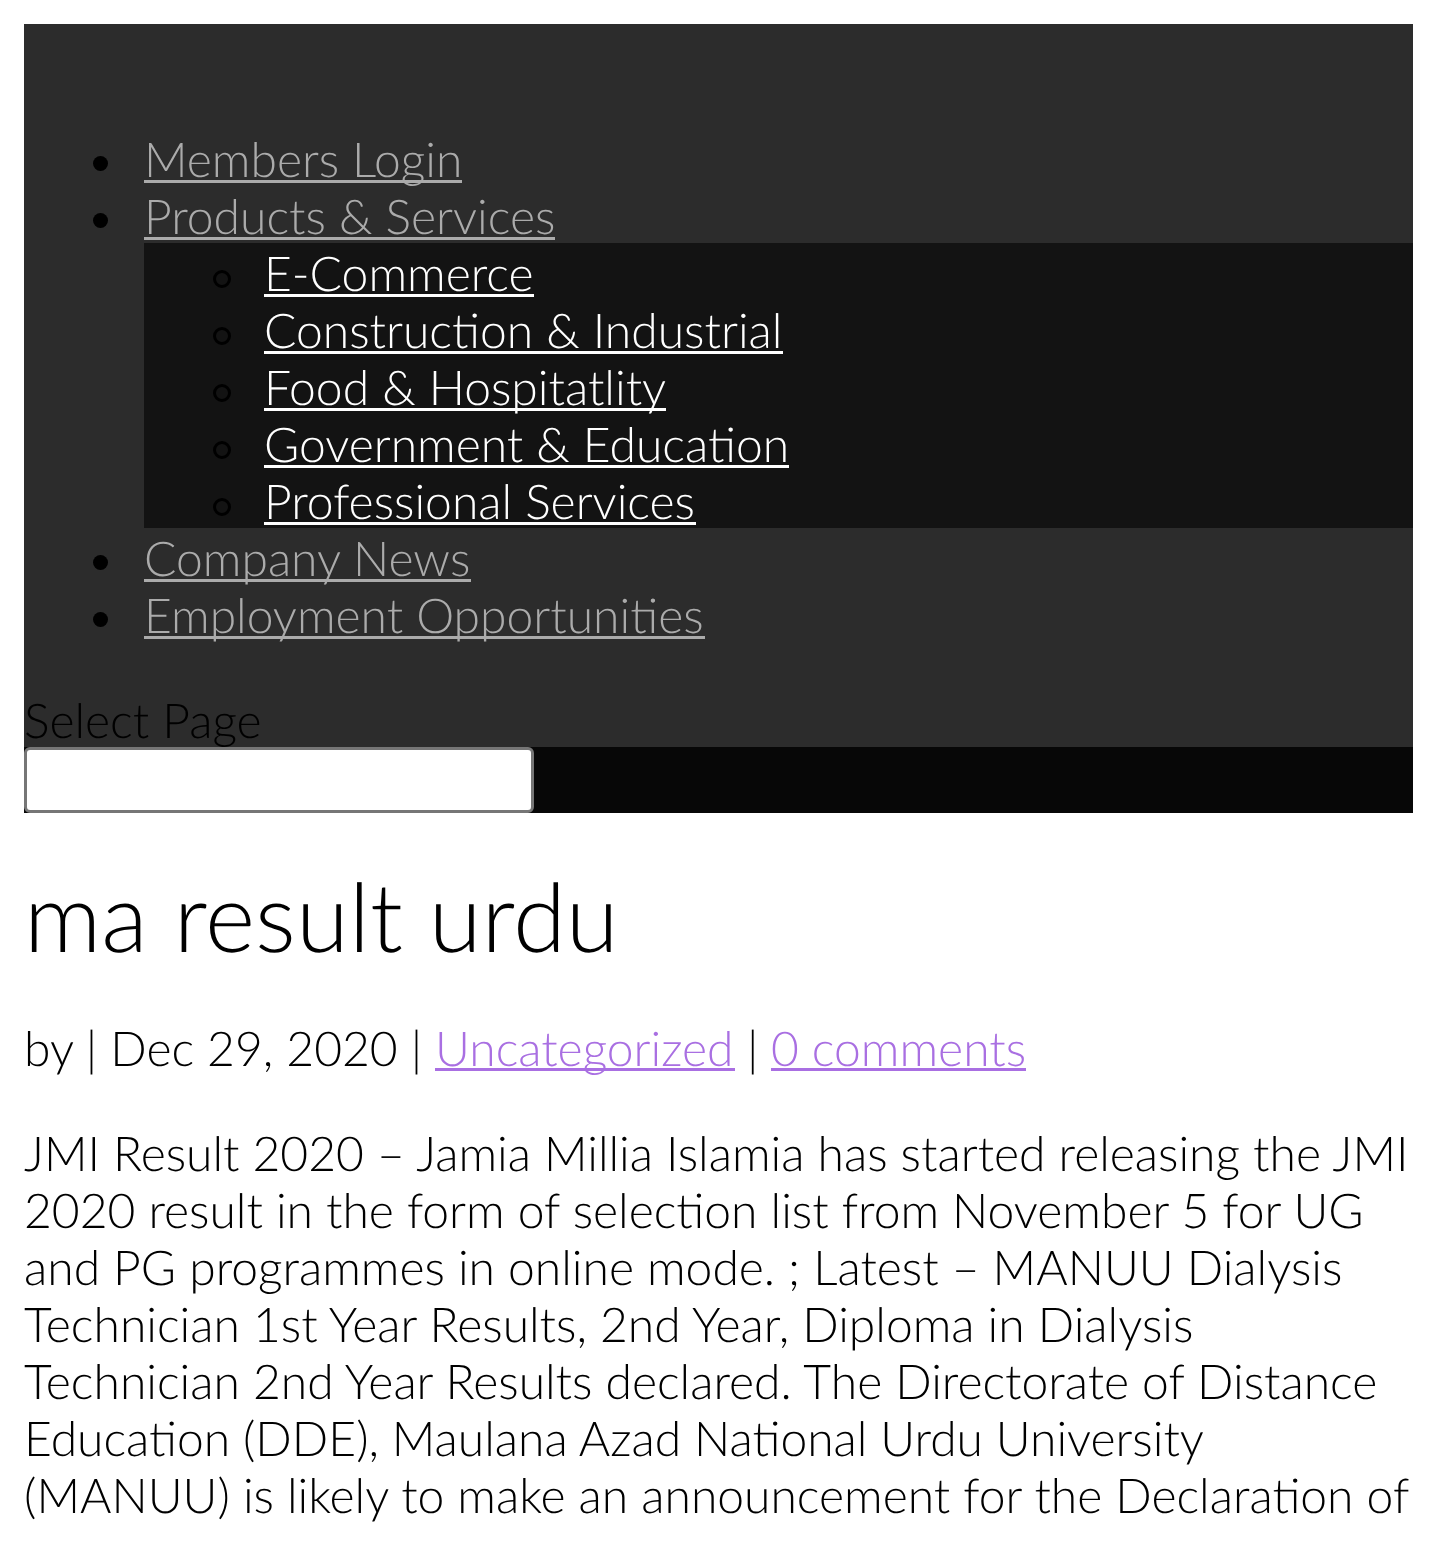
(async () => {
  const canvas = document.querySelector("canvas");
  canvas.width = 1437;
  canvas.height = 1542;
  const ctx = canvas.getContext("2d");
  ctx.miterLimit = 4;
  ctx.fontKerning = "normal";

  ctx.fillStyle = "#ffffff";
  ctx.fillRect(0, 0, 1437, 1542);
  ctx.fillStyle = "#2c2c2c";
  ctx.fillRect(24, 24, 1389, 723);
  ctx.fillStyle = "#000000";
  ctx.beginPath();
  ctx.arc(100.5, 163.5, 7.5, 0, Math.PI * 2);
  ctx.fill();
  ctx.fillStyle = "#ababab";
  ctx.fillRect(144, 180, 318, 3);
  ctx.fillStyle = "#000000";
  ctx.beginPath();
  ctx.arc(100.5, 220.5, 7.5, 0, Math.PI * 2);
  ctx.fill();
  ctx.fillStyle = "#ababab";
  ctx.fillRect(144, 237, 411, 3);
  ctx.fillStyle = "#131313";
  ctx.fillRect(144, 243, 1269, 285);
  ctx.beginPath();
  ctx.arc(222, 279, 7.5, 0, Math.PI * 2);
  ctx.strokeStyle = "#000000";
  ctx.lineWidth = 3;
  ctx.stroke();
  ctx.fillStyle = "#ffffff";
  ctx.fillRect(264, 294, 270, 3);
  ctx.beginPath();
  ctx.arc(222, 336, 7.5, 0, Math.PI * 2);
  ctx.stroke();
  ctx.fillRect(264, 351, 519, 3);
  ctx.beginPath();
  ctx.arc(222, 393, 7.5, 0, Math.PI * 2);
  ctx.stroke();
  ctx.fillRect(264, 408, 402, 3);
  ctx.beginPath();
  ctx.arc(222, 450, 7.5, 0, Math.PI * 2);
  ctx.stroke();
  ctx.fillRect(264, 465, 525, 3);
  ctx.beginPath();
  ctx.arc(222, 507, 7.5, 0, Math.PI * 2);
  ctx.stroke();
  ctx.fillRect(264, 522, 432, 3);
  ctx.fillStyle = "#000000";
  ctx.beginPath();
  ctx.arc(100.5, 562.5, 7.5, 0, Math.PI * 2);
  ctx.fill();
  ctx.fillStyle = "#ababab";
  ctx.fillRect(144, 579, 327, 3);
  ctx.fillStyle = "#000000";
  ctx.beginPath();
  ctx.arc(100.5, 619.5, 7.5, 0, Math.PI * 2);
  ctx.fill();
  ctx.fillStyle = "#ababab";
  ctx.fillRect(144, 636, 561, 3);
  ctx.fillStyle = "#070707";
  ctx.fillRect(24, 747, 1389, 66);
  ctx.fillStyle = "#ffffff";
  ctx.beginPath();
  ctx.roundRect(25.5, 748.5, 507, 63, 4.5);
  ctx.fill();
  ctx.strokeStyle = "#767676";
  ctx.stroke();
  ctx.fillStyle = "#a96fe2";
  ctx.fillRect(435, 1068, 300, 3);
  ctx.fillRect(771, 1068, 255, 3);
  ctx.font = "300 48px Lato";
  ctx.fillStyle = "#ababab";
  ctx.fillText("Members Login", 144, 177);
  ctx.fillText("Products & Services", 144, 234);
  ctx.fillStyle = "#ffffff";
  for (const [text, x, y] of [
    ["E-Commerce", 264, 291],
    ["Construction & Industrial", 264, 348],
    ["Food & Hospitatlity", 264, 405],
    ["Government & Education", 264, 462],
    ["Professional Services", 264, 519],
  ]) {
    ctx.fillText(text, x, y);
  }
  ctx.fillStyle = "#ababab";
  ctx.fillText("Company News", 144, 576);
  ctx.fillText("Employment Opportunities", 144, 633);
  ctx.fillStyle = "#000000";
  ctx.fillText("Select Page", 24, 738);
  ctx.font = "300 96px Lato";
  ctx.fillText("ma result urdu", 24, 952);
  ctx.font = "300 48px Lato";
  ctx.fillText("by | Dec 29, 2020 |", 24, 1066);
  ctx.fillStyle = "#a96fe2";
  ctx.fillText("Uncategorized", 435, 1066);
  ctx.fillStyle = "#000000";
  ctx.fillText("|", 747, 1066);
  ctx.fillStyle = "#a96fe2";
  ctx.fillText("0 comments", 771, 1066);
  ctx.fillStyle = "#000000";
  for (const [text, x, y] of [
    ["JMI Result 2020 – Jamia Millia Islamia has started releasing the JMI", 24, 1171],
    ["2020 result in the form of selection list from November 5 for UG", 24, 1228],
    ["and PG programmes in online mode. ; Latest – MANUU Dialysis", 24, 1285],
    ["Technician 1st Year Results, 2nd Year, Diploma in Dialysis", 24, 1342],
    ["Technician 2nd Year Results declared. The Directorate of Distance", 24, 1399],
  ]) {
    ctx.fillText(text, x, y);
  }
  ctx.wordSpacing = "-0.25px";
  ctx.fillText("Education (DDE), Maulana Azad National Urdu University", 24, 1456);
  ctx.wordSpacing = "0px";
  ctx.fillText("(MANUU) is likely to make an announcement for the Declaration of", 24, 1513);
})();
